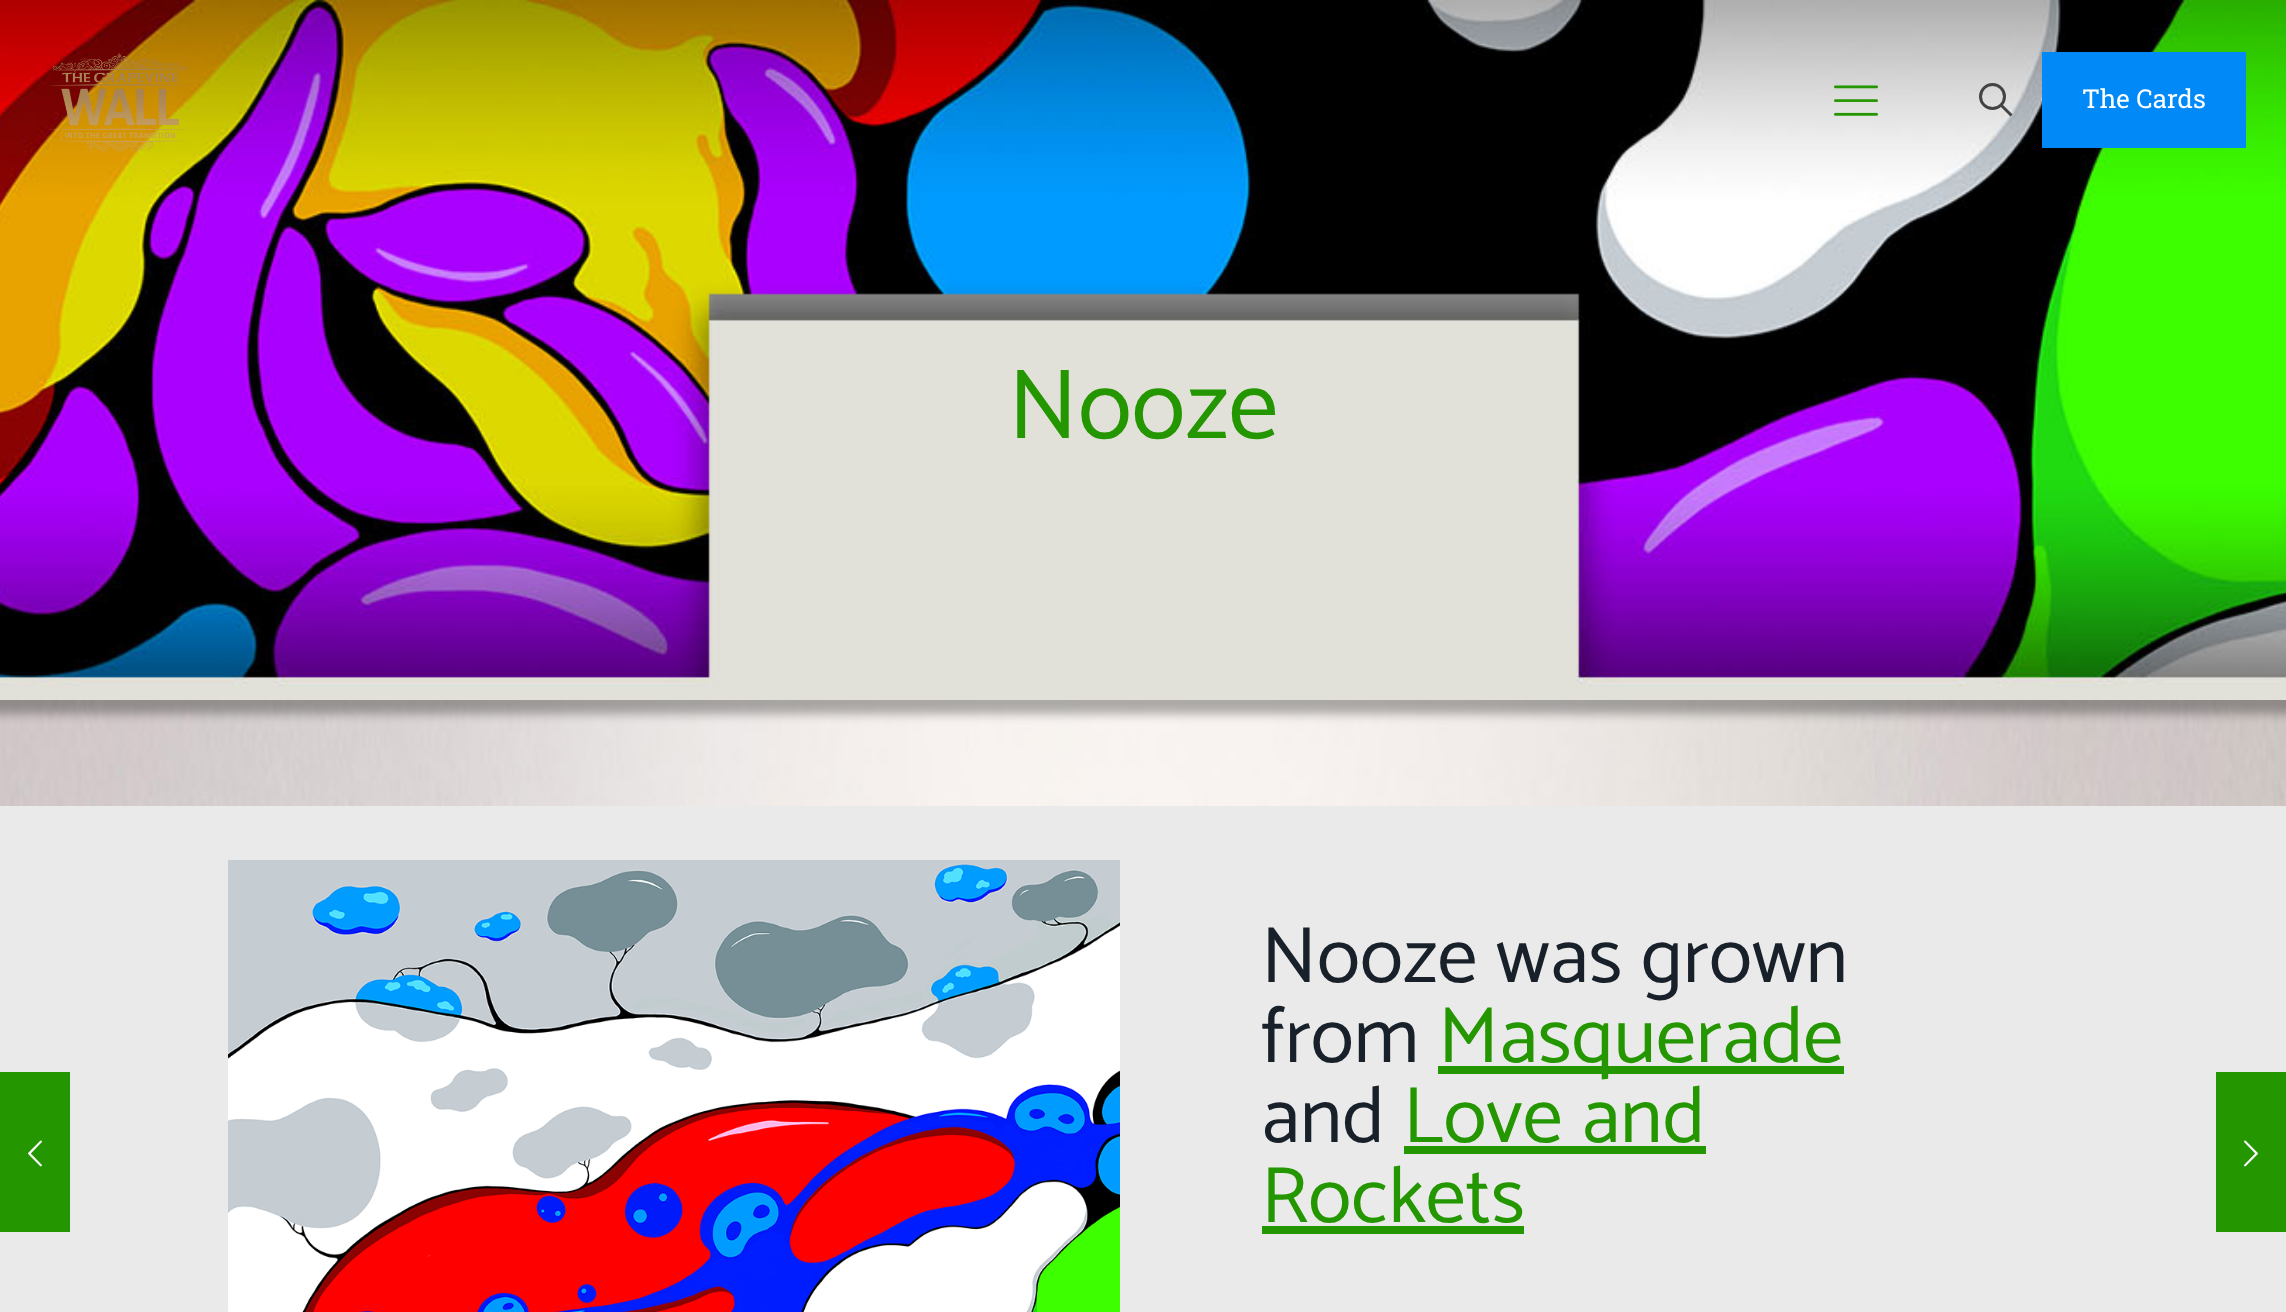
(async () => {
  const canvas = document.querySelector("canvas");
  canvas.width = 2286;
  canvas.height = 1312;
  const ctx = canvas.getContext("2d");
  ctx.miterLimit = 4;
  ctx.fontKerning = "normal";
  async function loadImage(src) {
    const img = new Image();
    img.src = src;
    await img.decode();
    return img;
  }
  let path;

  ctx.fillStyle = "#ffffff";
  ctx.fillRect(0, 0, 2286, 1312);
  ctx.fillStyle = "#eaeaea";
  ctx.fillRect(0, 806, 2286, 506);
  ctx.fillStyle = "#249600";
  ctx.fillRect(0, 1072, 70, 160);
  ctx.drawImage(await loadImage("img/1.png"), 28, 1140, 14, 27);
  ctx.drawImage(await loadImage("img/2.png"), 0, 0, 2286, 700);
  ctx.drawImage(await loadImage("img/3.png"), 50, 53, 140, 99);
  ctx.drawImage(await loadImage("img/4.png"), 1834, 85, 44, 31);
  ctx.beginPath();
  ctx.arc(1992.5, 96.5, 12, 0, Math.PI * 2);
  ctx.strokeStyle = "#444444";
  ctx.lineWidth = 3;
  ctx.stroke();
  path = new Path2D("M2001 105L2011.5 115.5");
  ctx.stroke(path);
  ctx.fillStyle = "#0089f7";
  ctx.fillRect(2042, 52, 204, 96);
  ctx.drawImage(await loadImage("img/5.png"), 0, 700, 2286, 106);
  ctx.drawImage(await loadImage("img/6.png"), 228, 860, 892, 452);
  for (const [x, y, w, h, color] of [
    [1438, 1066, 406, 8, "#249600"],
    [1404, 1146, 302, 8, "#249600"],
    [1262, 1226, 262, 8, "#249600"],
    [2216, 1072, 70, 160, "#249600"],
  ]) {
    ctx.fillStyle = color;
    ctx.fillRect(x, y, w, h);
  }
  ctx.drawImage(await loadImage("img/7.png"), 2244, 1140, 14, 27);
  ctx.font = "26px Roboto Slab";
  ctx.fillStyle = "#ffffff";
  ctx.fillText("The Cards", 2082, 108);
  ctx.font = "100px Catamaran";
  ctx.fillStyle = "#249600";
  ctx.fillText("Nooze", 1008, 438);
  ctx.font = "80px Catamaran";
  ctx.fillStyle = "#18202a";
  ctx.fillText("Nooze was grown", 1261, 982);
  ctx.fillText("from", 1261, 1062);
  ctx.fillStyle = "#249600";
  ctx.fillText("Masquerade", 1438, 1062);
  ctx.fillStyle = "#18202a";
  ctx.fillText("and", 1261, 1142);
  ctx.fillStyle = "#249600";
  ctx.fillText("Love and", 1403, 1142);
  ctx.fillText("Rockets", 1261, 1222);
})();
